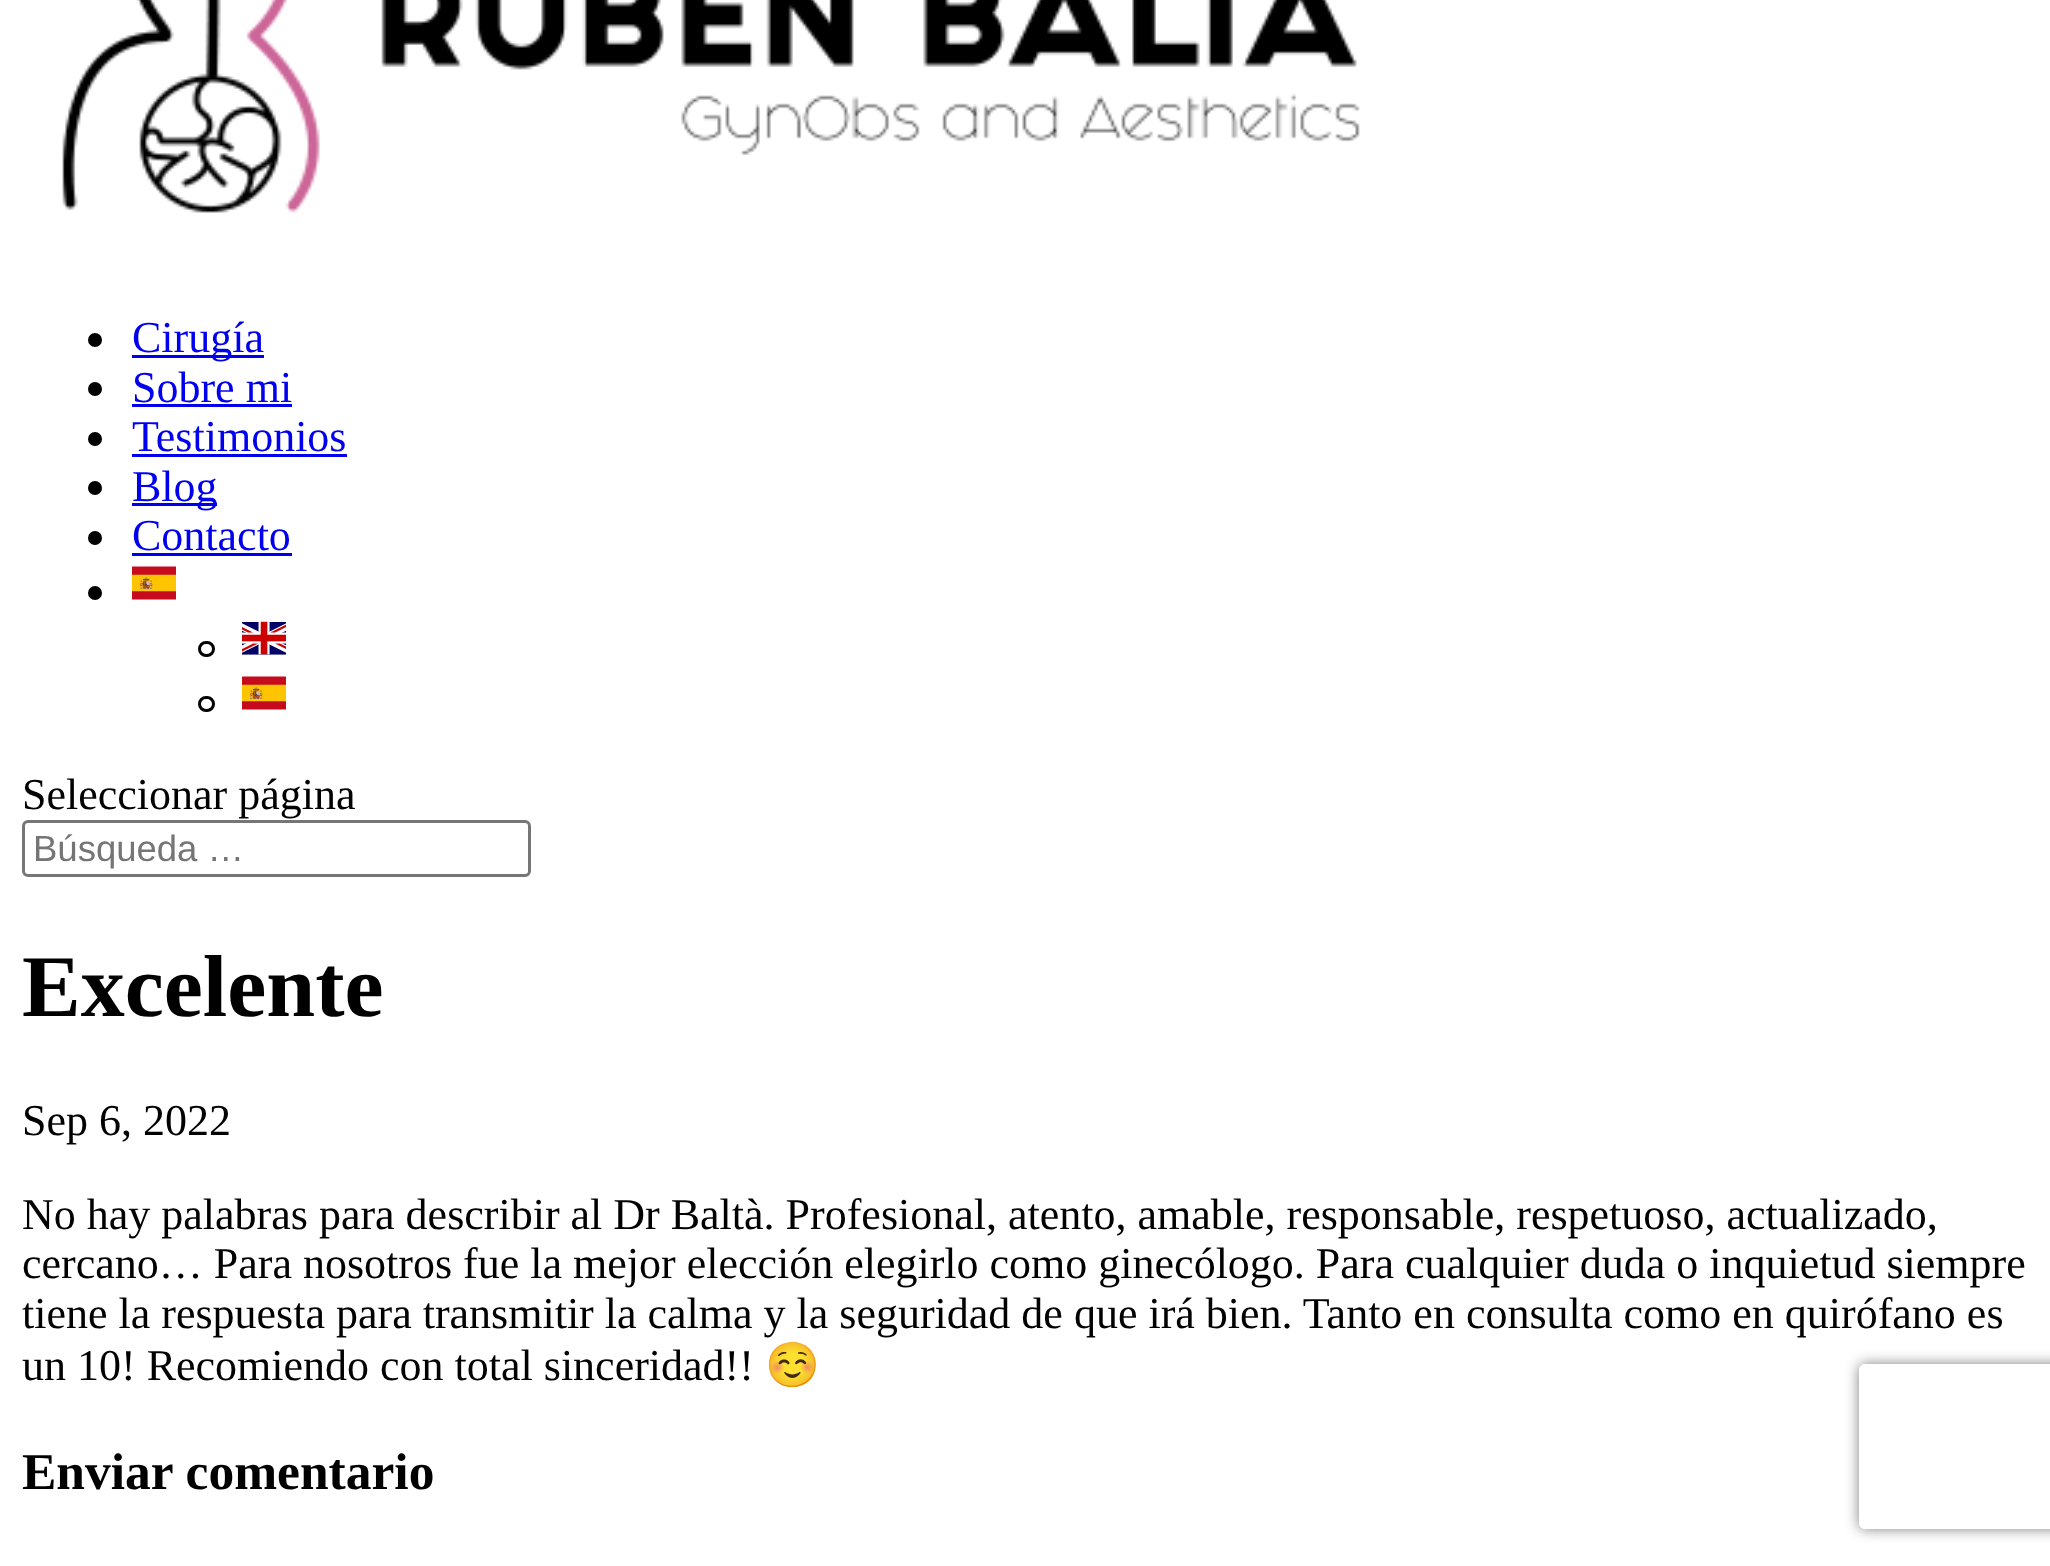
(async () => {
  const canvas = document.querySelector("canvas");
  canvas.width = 2050;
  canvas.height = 1566;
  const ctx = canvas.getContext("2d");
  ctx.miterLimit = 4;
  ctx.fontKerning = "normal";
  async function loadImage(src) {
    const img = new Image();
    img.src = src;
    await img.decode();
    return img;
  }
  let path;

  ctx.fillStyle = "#ffffff";
  ctx.fillRect(0, 0, 2050, 1566);
  ctx.drawImage(await loadImage("img/1.png"), 62, 0, 1298, 213);
  ctx.fillStyle = "#000000";
  ctx.beginPath();
  ctx.arc(95, 340, 7, 0, Math.PI * 2);
  ctx.fill();
  ctx.fillStyle = "#0000ee";
  ctx.fillRect(132, 355, 132, 3);
  ctx.fillStyle = "#000000";
  ctx.beginPath();
  ctx.arc(95, 389, 7, 0, Math.PI * 2);
  ctx.fill();
  ctx.fillStyle = "#0000ee";
  ctx.fillRect(132, 404, 160, 3);
  ctx.fillStyle = "#000000";
  ctx.beginPath();
  ctx.arc(95, 439, 7, 0, Math.PI * 2);
  ctx.fill();
  ctx.fillStyle = "#0000ee";
  ctx.fillRect(132, 454, 215, 3);
  ctx.fillStyle = "#000000";
  ctx.beginPath();
  ctx.arc(95, 488, 7, 0, Math.PI * 2);
  ctx.fill();
  ctx.fillStyle = "#0000ee";
  ctx.fillRect(132, 503, 85, 3);
  ctx.fillStyle = "#000000";
  ctx.beginPath();
  ctx.arc(95, 538, 7, 0, Math.PI * 2);
  ctx.fill();
  ctx.fillStyle = "#0000ee";
  ctx.fillRect(132, 553, 160, 3);
  ctx.fillStyle = "#000000";
  ctx.beginPath();
  ctx.arc(95, 593, 7, 0, Math.PI * 2);
  ctx.fill();
  ctx.drawImage(await loadImage("img/2.png"), 132, 566, 44, 34);
  ctx.beginPath();
  ctx.roundRect(199.5, 642.5, 14, 13, 6.5);
  ctx.strokeStyle = "#000000";
  ctx.lineWidth = 3;
  ctx.stroke();
  ctx.drawImage(await loadImage("img/3.png"), 242, 621, 44, 34);
  ctx.beginPath();
  ctx.roundRect(199.5, 697.5, 14, 13, 6.5);
  ctx.stroke();
  ctx.drawImage(await loadImage("img/4.png"), 242, 676, 44, 34);
  ctx.beginPath();
  ctx.roundRect(23.5, 821.5, 506, 54, 4.5);
  ctx.strokeStyle = "#767676";
  ctx.stroke();
  ctx.save();
  path = new Path2D("M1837 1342H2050V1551H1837ZM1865 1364H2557C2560.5 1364 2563 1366.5 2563 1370V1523C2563 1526.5 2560.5 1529 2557 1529H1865C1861.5 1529 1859 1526.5 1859 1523V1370C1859 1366.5 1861.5 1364 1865 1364Z");
  ctx.clip(path, "evenodd");
  ctx.fillStyle = "#808080";
  ctx.filter = "blur(7px)";
  ctx.beginPath();
  ctx.roundRect(1859, 1364, 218, 165, 6);
  ctx.fill();
  ctx.filter = "none";
  ctx.restore();
  ctx.font = "44px Liberation Serif";
  ctx.fillStyle = "#0000ee";
  for (const [text, x, y] of [
    ["Cirugía", 132, 352],
    ["Sobre mi", 132, 402],
    ["Testimonios", 132, 451],
    ["Blog", 132, 501],
    ["Contacto", 132, 550],
  ]) {
    ctx.fillText(text, x, y);
  }
  ctx.fillStyle = "#000000";
  ctx.fillText("Seleccionar página", 22, 809);
  ctx.font = "36.5px Liberation Sans";
  ctx.fillStyle = "#757575";
  ctx.fillText("Búsqueda …", 33, 861);
  ctx.font = "bold 88px Liberation Serif";
  ctx.fillStyle = "#000000";
  ctx.fillText("Excelente", 22, 1016);
  ctx.font = "44px Liberation Serif";
  for (const [text, x, y] of [
    ["Sep 6, 2022", 22, 1135],
    ["No hay palabras para describir al Dr Baltà. Profesional, atento, amable, responsable, respetuoso, actualizado,", 22, 1229],
    ["cercano… Para nosotros fue la mejor elección elegirlo como ginecólogo. Para cualquier duda o inquietud siempre", 22, 1278],
    ["tiene la respuesta para transmitir la calma y la seguridad de que irá bien. Tanto en consulta como en quirófano es", 22, 1328],
    ["un 10! Recomiendo con total sinceridad!!", 22, 1380],
  ]) {
    ctx.fillText(text, x, y);
  }
  ctx.font = "44px Noto Color Emoji";
  ctx.fillText("☺️", 765, 1380);
  ctx.font = "bold 51.5px Liberation Serif";
  ctx.fillText("Enviar comentario", 22, 1489);
})();
